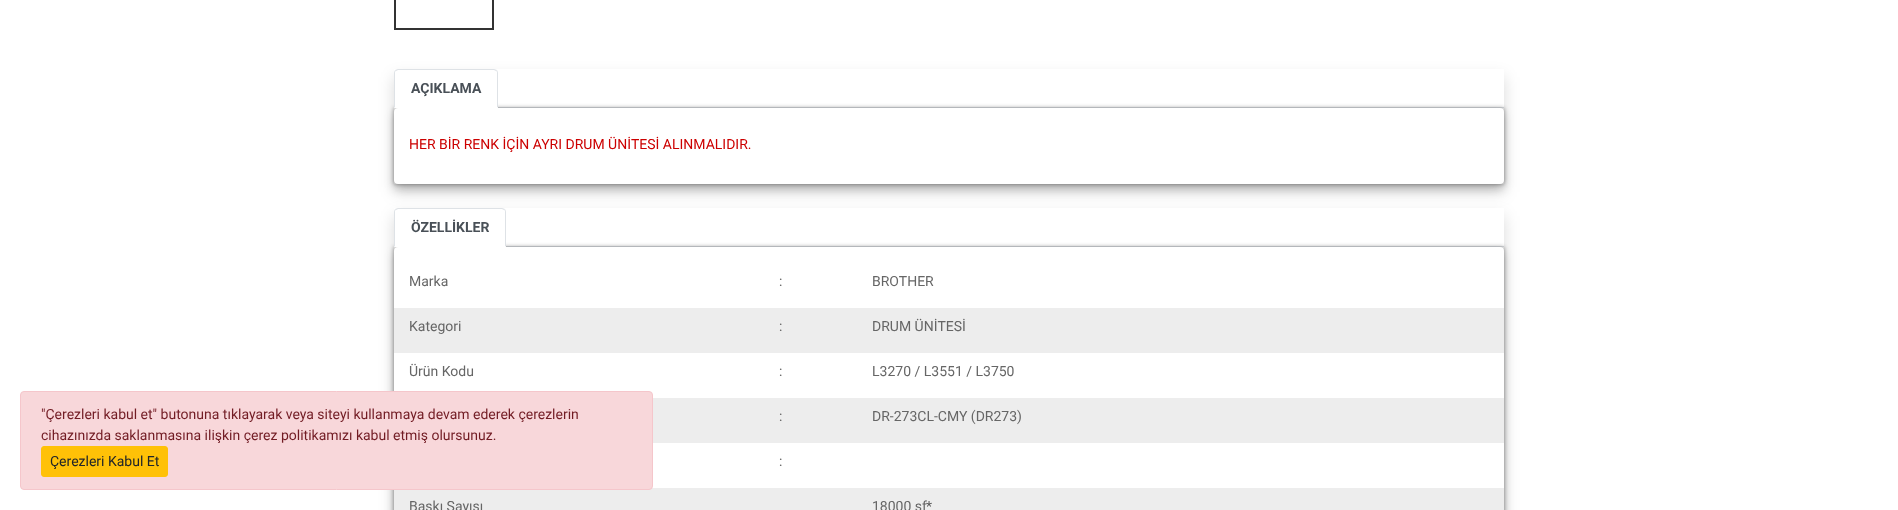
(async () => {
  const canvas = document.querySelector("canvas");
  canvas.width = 1898;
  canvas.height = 510;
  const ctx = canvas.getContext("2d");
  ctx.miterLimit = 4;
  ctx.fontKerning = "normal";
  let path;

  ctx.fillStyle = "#ffffff";
  ctx.fillRect(0, 0, 1898, 510);
  ctx.save();
  path = new Path2D("M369 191H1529V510H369ZM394 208H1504V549H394Z");
  ctx.clip(path, "evenodd");
  ctx.fillStyle = "rgba(0, 0, 0, 0.15)";
  ctx.filter = "blur(8px)";
  ctx.beginPath();
  ctx.rect(394, 216, 1110, 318);
  ctx.fill();
  ctx.filter = "none";
  ctx.restore();
  ctx.fillStyle = "#dee2e6";
  ctx.fillRect(506, 246, 998, 1);
  ctx.fillStyle = "rgba(0, 0, 0, 0.4)";
  ctx.filter = "blur(2px)";
  ctx.beginPath();
  ctx.rect(394, 247, 1110, 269);
  ctx.fill();
  ctx.filter = "none";
  ctx.fillStyle = "rgba(0, 0, 0, 0.2)";
  ctx.filter = "blur(5px)";
  ctx.beginPath();
  ctx.roundRect(394, 252, 1110, 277, 4);
  ctx.fill();
  ctx.filter = "none";
  ctx.fillStyle = "#ffffff";
  ctx.beginPath();
  ctx.roundRect(394, 247, 1110, 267, 4);
  ctx.fill();
  ctx.fillStyle = "#ededed";
  ctx.fillRect(394, 488, 1110, 22);
  ctx.fillStyle = "#f8d7da";
  ctx.beginPath();
  ctx.roundRect(20.5, 391.5, 632, 98, 3.5);
  ctx.fill();
  ctx.strokeStyle = "#f5c6cb";
  ctx.stroke();
  ctx.fillStyle = "#ffc107";
  ctx.beginPath();
  ctx.roundRect(41.5, 446.5, 126, 30, 2.5);
  ctx.fill();
  ctx.strokeStyle = "#ffc107";
  ctx.stroke();
  ctx.strokeStyle = "#333333";
  ctx.lineWidth = 2;
  ctx.strokeRect(395, -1, 98, 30);
  ctx.save();
  path = new Path2D("M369 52H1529V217H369ZM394 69H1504V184H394Z");
  ctx.clip(path, "evenodd");
  ctx.fillStyle = "rgba(0, 0, 0, 0.15)";
  ctx.filter = "blur(8px)";
  ctx.beginPath();
  ctx.rect(394, 77, 1110, 115);
  ctx.fill();
  ctx.filter = "none";
  ctx.restore();
  ctx.fillStyle = "#dee2e6";
  ctx.fillRect(498, 107, 1006, 1);
  ctx.fillStyle = "rgba(0, 0, 0, 0.4)";
  ctx.filter = "blur(2px)";
  ctx.beginPath();
  ctx.rect(394, 108, 1110, 76);
  ctx.fill();
  ctx.filter = "none";
  ctx.fillStyle = "rgba(0, 0, 0, 0.2)";
  ctx.filter = "blur(5px)";
  ctx.beginPath();
  ctx.roundRect(394, 113, 1110, 76, 4);
  ctx.fill();
  ctx.filter = "none";
  ctx.fillStyle = "#ffffff";
  ctx.beginPath();
  ctx.roundRect(394, 69, 104, 39, [4, 4, 0, 0]);
  ctx.fill();
  ctx.fillStyle = "#dee2e6";
  path = new Path2D("M398 69L395 70L396 71L398 70H494L496 71L497 70L494 69Z");
  ctx.fill(path);
  path = new Path2D("M498 108V73C498 72 497.5 71 497 70L496 71C497 71 497 72 497 73V107Z");
  ctx.fill(path);
  ctx.fillStyle = "#ffffff";
  path = new Path2D("M498 108L497 107H395L394 108Z");
  ctx.fill(path);
  ctx.fillStyle = "#dee2e6";
  path = new Path2D("M394 108L395 107V73C395 72 395 71 396 71L395 70C394.5 71 394 72 394 73Z");
  ctx.fill(path);
  ctx.fillStyle = "#ffffff";
  ctx.beginPath();
  ctx.roundRect(394, 108, 1110, 76, 4);
  ctx.fill();
  ctx.beginPath();
  ctx.roundRect(394, 208, 112, 39, [4, 4, 0, 0]);
  ctx.fill();
  ctx.fillStyle = "#dee2e6";
  path = new Path2D("M398 208L395 209L396 210L398 209H502L504 210L505 209L502 208Z");
  ctx.fill(path);
  path = new Path2D("M506 247V212C506 211 505.5 210 505 209L504 210C505 210 505 211 505 212V246Z");
  ctx.fill(path);
  ctx.fillStyle = "#ffffff";
  path = new Path2D("M506 247L505 246H395L394 247Z");
  ctx.fill(path);
  ctx.fillStyle = "#dee2e6";
  path = new Path2D("M394 247L395 246V212C395 211 395 210 396 210L395 209C394.5 210 394 211 394 212Z");
  ctx.fill(path);
  ctx.fillStyle = "#ededed";
  ctx.fillRect(394, 308, 1110, 45);
  ctx.fillRect(653, 398, 851, 45);
  ctx.font = "14px Roboto";
  ctx.fillStyle = "#721c24";
  ctx.fillText("\"Çerezleri kabul et\" butonuna tıklayarak veya siteyi kullanmaya devam ederek çerezlerin", 41, 419);
  ctx.fillText("cihazınızda saklanmasına ilişkin çerez politikamızı kabul etmiş olursunuz.", 41, 440);
  ctx.fillStyle = "#212529";
  ctx.fillText("Çerezleri Kabul Et", 50, 466);
  ctx.font = "bold 14px Roboto";
  ctx.fillStyle = "#495057";
  ctx.fillText("AÇIKLAMA", 411, 93);
  ctx.font = "14px Roboto";
  ctx.fillStyle = "#cc0000";
  ctx.fillText("HER BİR RENK İÇİN AYRI DRUM ÜNİTESİ ALINMALIDIR.", 409, 149);
  ctx.font = "bold 14px Roboto";
  ctx.fillStyle = "#495057";
  ctx.fillText("ÖZELLİKLER", 411, 232);
  ctx.font = "14px Roboto";
  ctx.fillStyle = "#666666";
  for (const [text, x, y] of [
    ["Marka", 409, 286],
    [":", 779, 286],
    ["BROTHER", 872, 286],
    ["Kategori", 409, 331],
    [":", 779, 331],
    ["DRUM ÜNİTESİ", 872, 331],
    ["Ürün Kodu", 409, 376],
    [":", 779, 376],
    ["L3270 / L3551 / L3750", 872, 376],
    [":", 779, 421],
    ["DR-273CL-CMY (DR273)", 872, 421],
    [":", 779, 466],
    ["Baskı Sayısı", 409, 511],
    ["18000 sf", 872, 511],
  ]) {
    ctx.fillText(text, x, y);
  }
  ctx.fillStyle = "#555555";
  ctx.fillText("*", 926, 511);
})();
